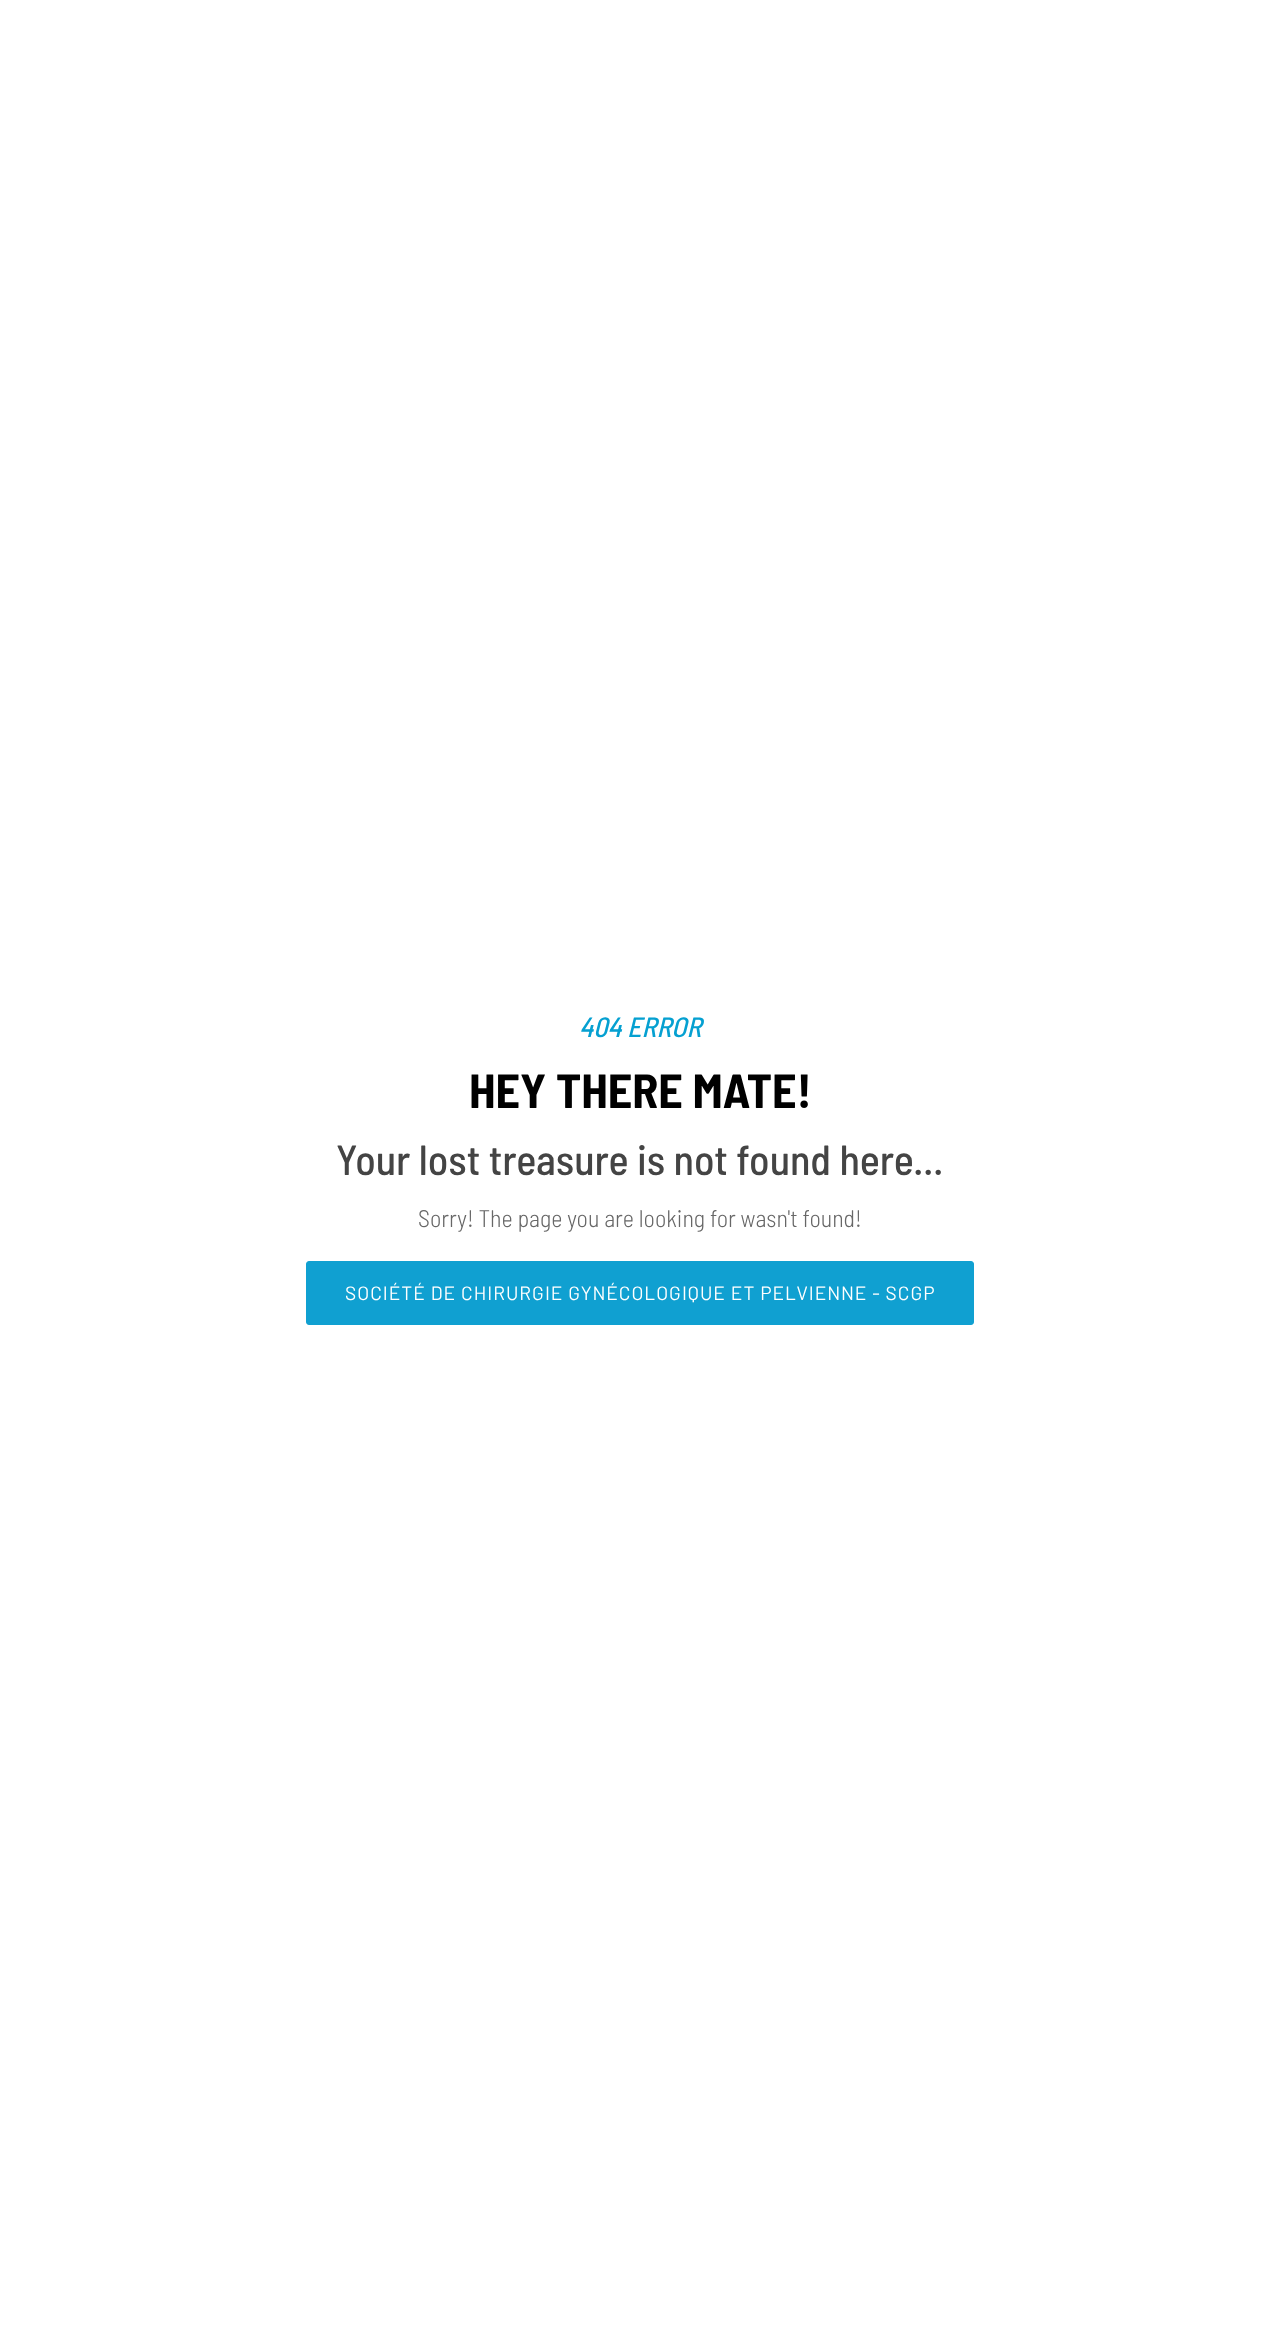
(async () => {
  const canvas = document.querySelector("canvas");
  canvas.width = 1280;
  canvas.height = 2336;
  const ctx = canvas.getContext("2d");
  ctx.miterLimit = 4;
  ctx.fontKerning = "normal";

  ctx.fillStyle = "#ffffff";
  ctx.fillRect(0, 0, 1280, 2336);
  ctx.fillStyle = "#10a0d1";
  ctx.beginPath();
  ctx.roundRect(306.5, 1261.5, 667, 63, 2.5);
  ctx.fill();
  ctx.strokeStyle = "#10a0d1";
  ctx.stroke();
  ctx.font = "italic 500 28px Barlow Semi Condensed";
  ctx.fillStyle = "#05a0d1";
  ctx.fillText("404 ERROR", 579, 1037);
  ctx.font = "bold 48px Barlow Semi Condensed";
  ctx.fillStyle = "#000000";
  ctx.fillText("HEY THERE MATE!", 469, 1108);
  ctx.font = "500 42px Barlow Semi Condensed";
  ctx.fillStyle = "#444444";
  ctx.fillText("Your lost treasure is not found here...", 336, 1175);
  ctx.font = "300 24px Barlow Semi Condensed";
  ctx.fillStyle = "#676767";
  ctx.fillText("Sorry! The page you are looking for wasn't found!", 418, 1227);
  ctx.letterSpacing = "1px";
  ctx.font = "19.2px Barlow";
  ctx.fillStyle = "#ffffff";
  ctx.fillText("SOCIÉTÉ DE CHIRURGIE GYNÉCOLOGIQUE ET PELVIENNE - SCGP", 345, 1300);
})();
